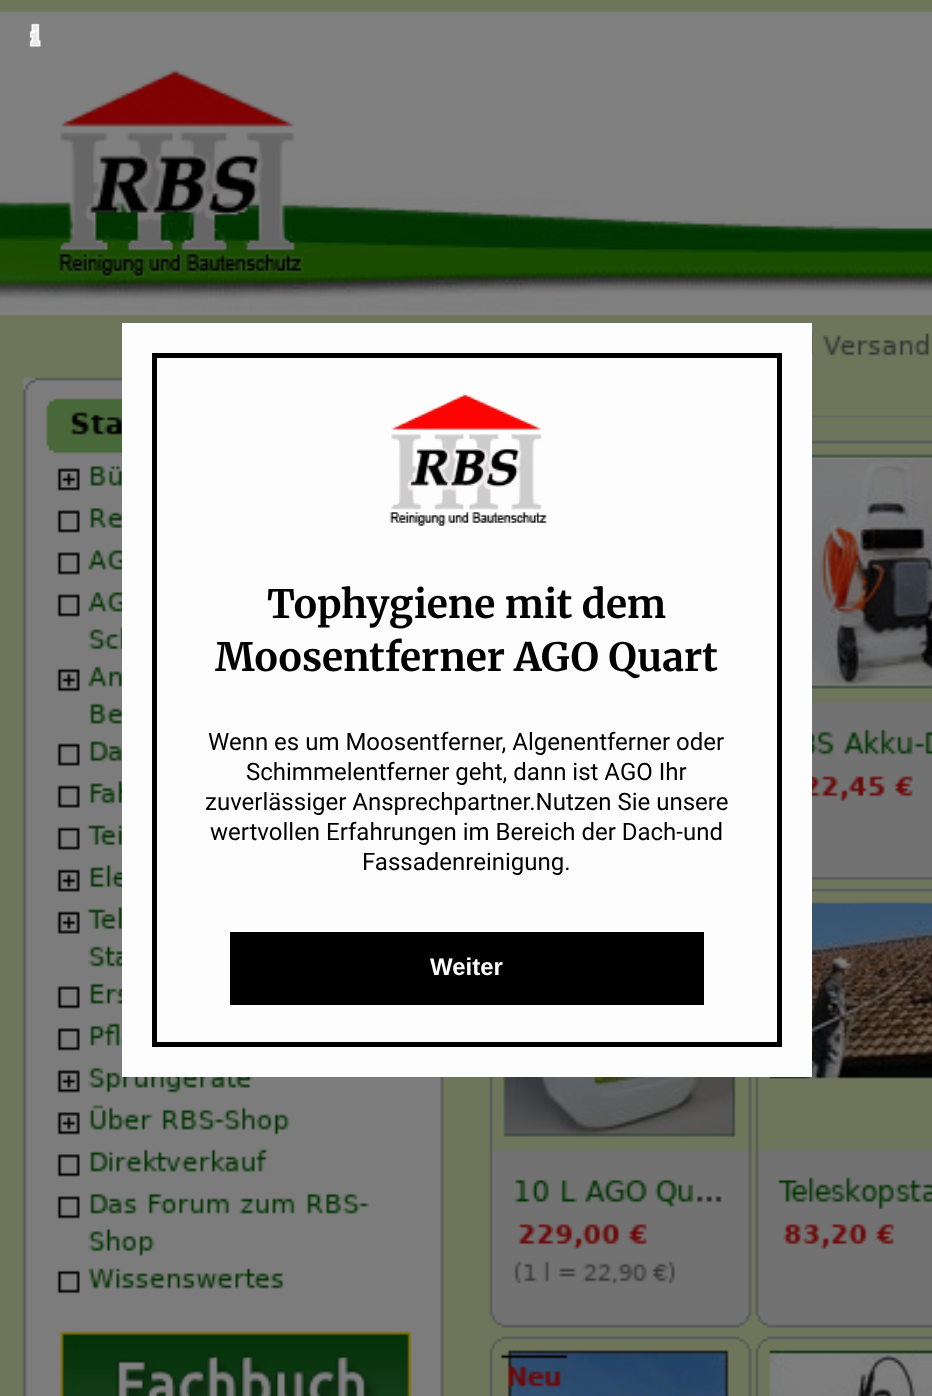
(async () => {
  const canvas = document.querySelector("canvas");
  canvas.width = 932;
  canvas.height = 1396;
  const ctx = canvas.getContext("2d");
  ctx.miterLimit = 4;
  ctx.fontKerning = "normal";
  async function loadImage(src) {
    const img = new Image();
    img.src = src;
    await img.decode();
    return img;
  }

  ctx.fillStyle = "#ffffff";
  ctx.fillRect(0, 0, 932, 1396);
  ctx.drawImage(await loadImage("img/1.png"), 0, 0, 932, 1396);
  ctx.drawImage(await loadImage("img/2.png"), 29, 23, 12, 24);
  ctx.fillStyle = "#fdfdfe";
  ctx.fillRect(122, 323, 690, 754);
  ctx.strokeStyle = "#000000";
  ctx.lineWidth = 5;
  ctx.strokeRect(154.5, 355.5, 625, 689);
  ctx.drawImage(await loadImage("img/3.png"), 389, 393, 158, 133);
  ctx.fillStyle = "#000000";
  ctx.fillRect(230, 932, 474, 73);
  ctx.font = "bold 39px Merriweather";
  ctx.fillText("Tophygiene mit dem", 267, 618);
  ctx.fillText("Moosentferner AGO Quart", 215, 671);
  ctx.font = "24px Roboto";
  for (const [text, x, y] of [
    ["Wenn es um Moosentferner, Algenentferner oder", 208, 750],
    ["Schimmelentferner geht, dann ist AGO Ihr", 246, 780],
    ["zuverlässiger Ansprechpartner.Nutzen Sie unsere", 205, 810],
    ["wertvollen Erfahrungen im Bereich der Dach-und", 210, 840],
    ["Fassadenreinigung.", 362, 870],
  ]) {
    ctx.fillText(text, x, y);
  }
  ctx.font = "bold 24px Liberation Sans";
  ctx.fillStyle = "#ffffff";
  ctx.fillText("Weiter", 430, 975);
})();
